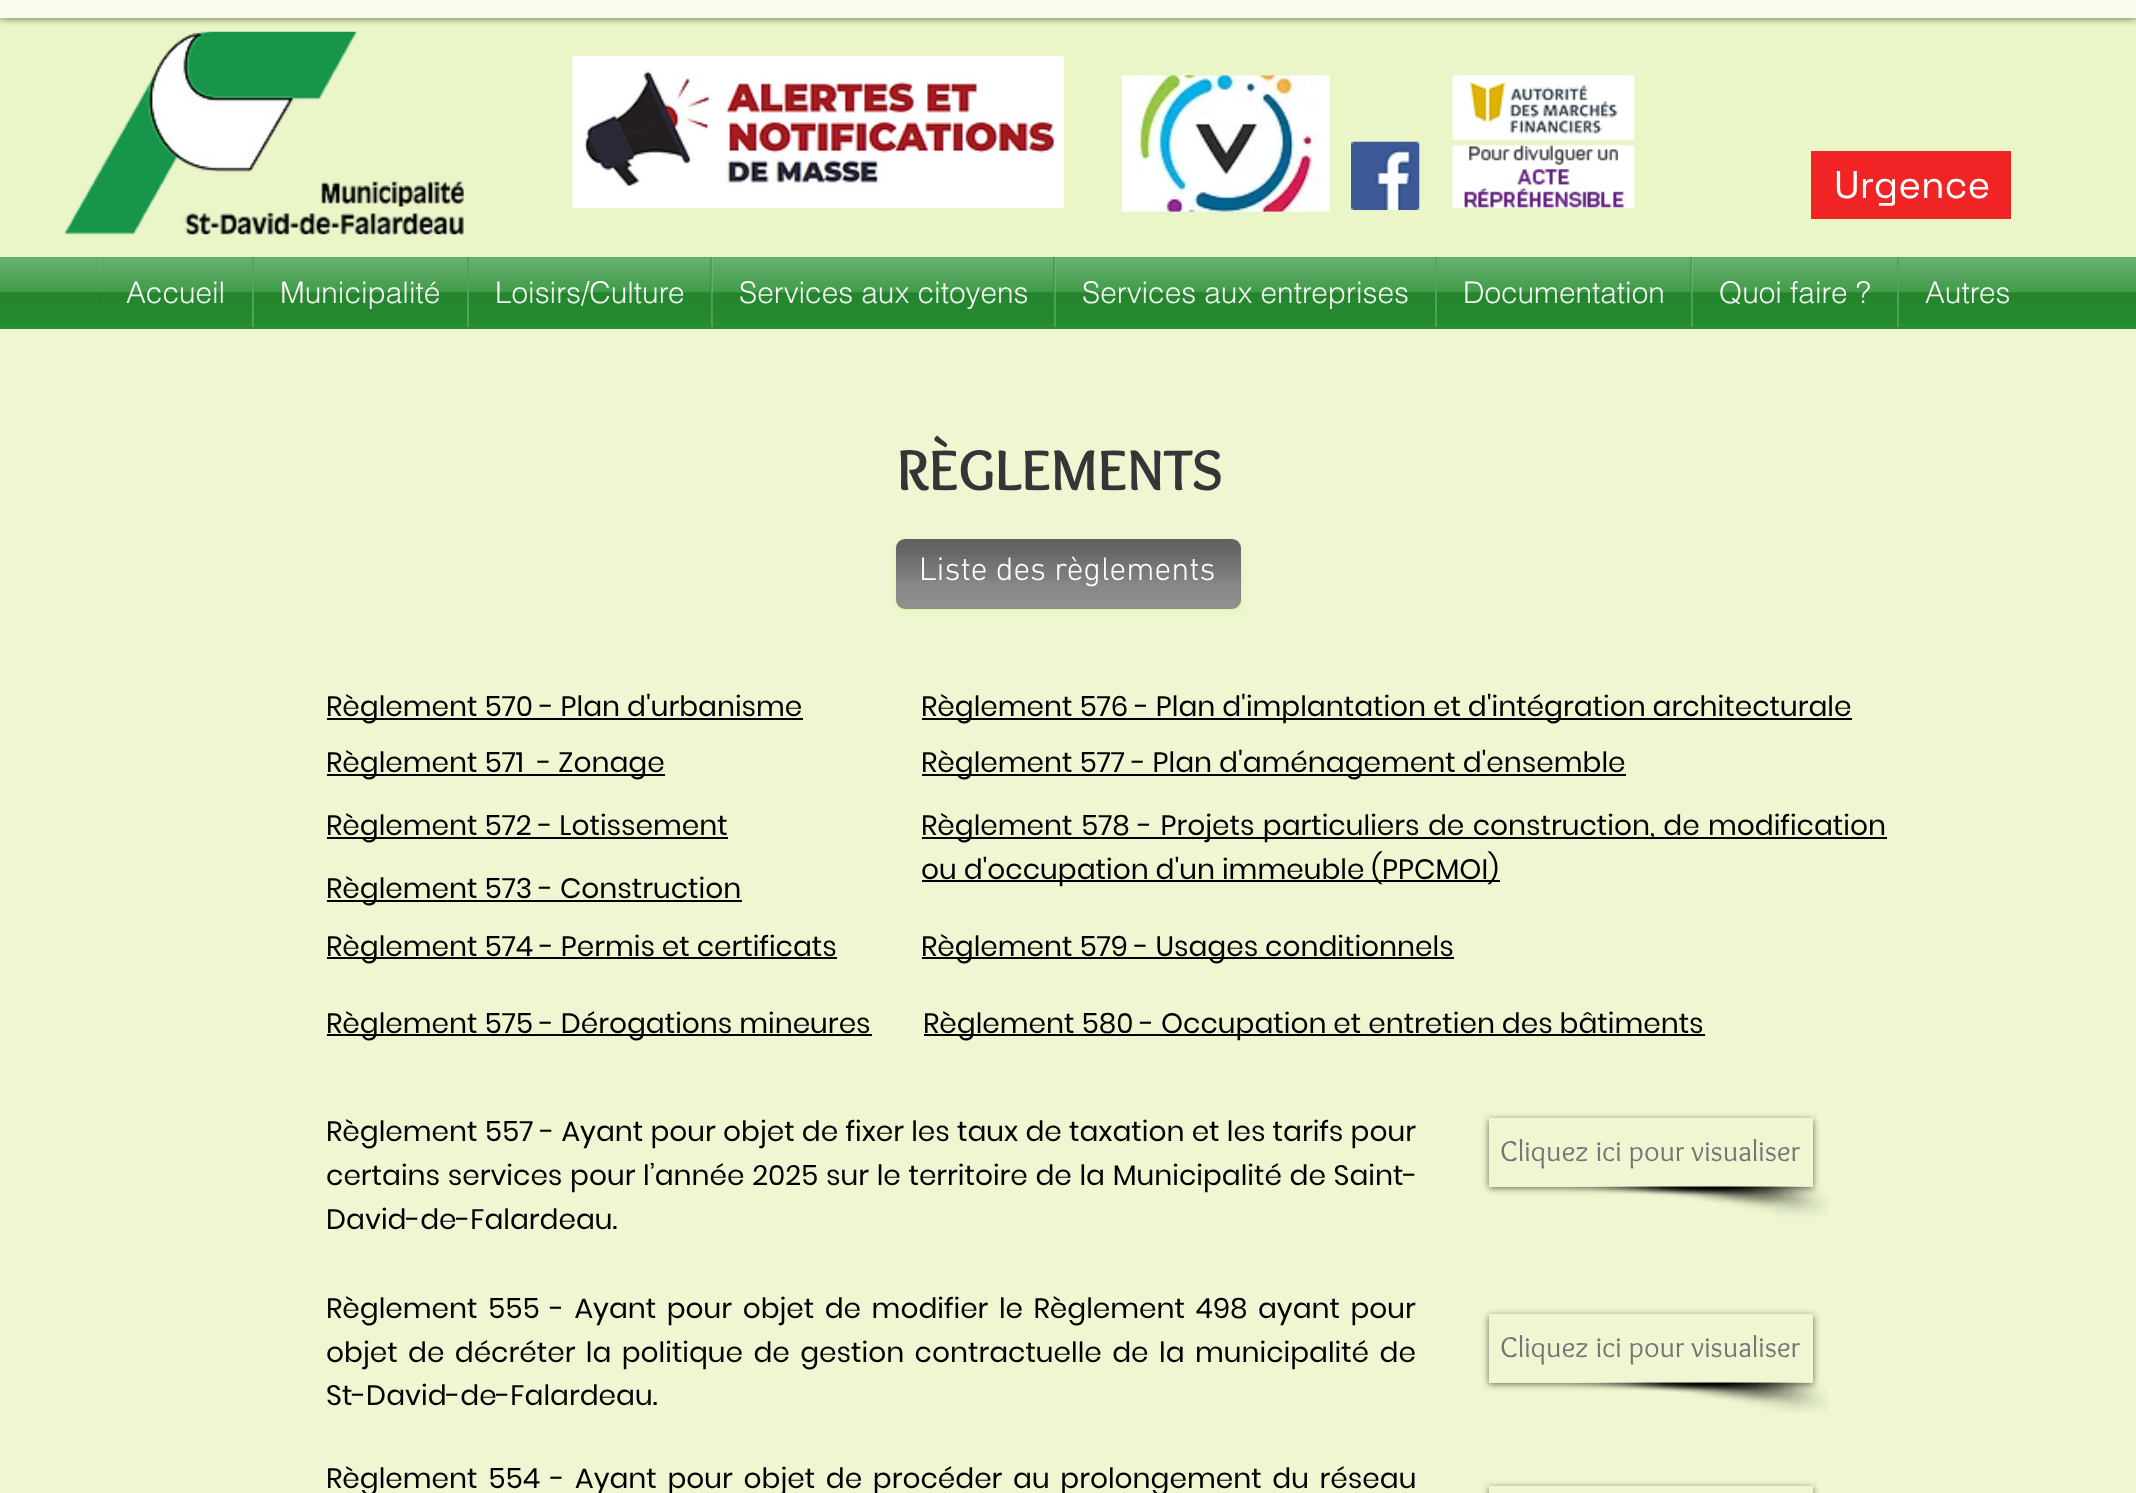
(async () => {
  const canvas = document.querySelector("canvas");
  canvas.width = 2136;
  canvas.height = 1493;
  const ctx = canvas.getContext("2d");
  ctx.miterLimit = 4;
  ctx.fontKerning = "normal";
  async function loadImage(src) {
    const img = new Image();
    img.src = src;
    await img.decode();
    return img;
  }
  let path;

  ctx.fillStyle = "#eef7d2";
  ctx.fillRect(0, 0, 2136, 1493);
  ctx.save();
  path = new Path2D("M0 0H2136V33H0ZM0 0H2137V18H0Z");
  ctx.clip(path, "evenodd");
  ctx.fillStyle = "rgba(0, 0, 0, 0.7)";
  ctx.filter = "blur(4.5px)";
  ctx.beginPath();
  ctx.rect(0, 0, 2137, 18);
  ctx.fill();
  ctx.filter = "none";
  ctx.restore();
  ctx.fillStyle = "rgba(255, 255, 255, 0.6)";
  ctx.fillRect(0, 0, 2136, 18);
  ctx.fillStyle = "rgba(218, 242, 143, 0.14)";
  ctx.fillRect(0, 18, 2136, 239);
  ctx.drawImage(await loadImage("img/1.png"), 64, 31, 400, 204);
  ctx.drawImage(await loadImage("img/2.png"), 572, 56, 492, 152);
  ctx.drawImage(await loadImage("img/3.png"), 1122, 75, 208, 137);
  ctx.drawImage(await loadImage("img/4.png"), 1452, 75, 183, 65);
  ctx.drawImage(await loadImage("img/5.png"), 1351, 141, 69, 69);
  ctx.drawImage(await loadImage("img/6.png"), 1452, 145, 183, 63);
  ctx.fillStyle = "#f02424";
  ctx.fillRect(1811, 151, 200, 68);
  ctx.fillStyle = "#278f31";
  ctx.fillRect(0, 257, 2136, 72);
  ctx.drawImage(await loadImage("img/7.png"), 0, 257, 2136, 66);
  for (const [x, y, w, h, color] of [
    [100, 257, 152, 66, "#278f31"],
    [254, 257, 213, 66, "#278f31"],
    [252, 257, 2, 70, "#4ea356"],
    [469, 257, 242, 66, "#278f31"],
    [467, 257, 2, 70, "#4ea356"],
    [713, 257, 341, 66, "#278f31"],
    [711, 257, 2, 70, "#4ea356"],
    [1056, 257, 379, 66, "#278f31"],
    [1054, 257, 2, 70, "#4ea356"],
    [1437, 257, 254, 66, "#278f31"],
    [1435, 257, 2, 70, "#4ea356"],
    [1693, 257, 204, 66, "#278f31"],
    [1691, 257, 2, 70, "#4ea356"],
    [1899, 257, 138, 66, "#278f31"],
    [1897, 257, 2, 70, "#4ea356"],
  ]) {
    ctx.fillStyle = color;
    ctx.fillRect(x, y, w, h);
  }
  ctx.fillStyle = "rgba(218, 242, 143, 0.6)";
  ctx.filter = "blur(3.5px)";
  ctx.beginPath();
  ctx.roundRect(896, 541, 345, 70, 9);
  ctx.fill();
  ctx.filter = "none";
  ctx.fillStyle = "#757575";
  ctx.beginPath();
  ctx.roundRect(896, 539, 345, 70, 9);
  ctx.fill();
  ctx.drawImage(await loadImage("img/16.png"), 896, 539, 345, 41);
  ctx.drawImage(await loadImage("img/17.png"), 896, 554, 345, 55);
  for (const [x, y, w, h, color] of [
    [327, 718, 476, 2, "#000000"],
    [922, 718, 930, 2, "#000000"],
    [327, 774, 338, 2, "#000000"],
    [922, 774, 704, 2, "#000000"],
    [327, 837, 401, 2, "#000000"],
    [922, 837, 965, 2, "#000000"],
    [922, 880, 578, 2, "#000000"],
    [327, 900, 415, 2, "#000000"],
    [327, 957, 510, 2, "#000000"],
    [922, 957, 532, 2, "#000000"],
    [327, 1034, 545, 2, "#000000"],
    [924, 1034, 781, 2, "#000000"],
  ]) {
    ctx.fillStyle = color;
    ctx.fillRect(x, y, w, h);
  }
  ctx.drawImage(await loadImage("img/18.png"), 1567, 1186, 261, 31);
  ctx.save();
  path = new Path2D("M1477 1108H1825V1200H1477ZM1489 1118H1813V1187H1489Z");
  ctx.clip(path, "evenodd");
  ctx.fillStyle = "rgba(0, 0, 0, 0.6)";
  ctx.filter = "blur(3.5px)";
  ctx.beginPath();
  ctx.rect(1489, 1120, 324, 68);
  ctx.fill();
  ctx.filter = "none";
  ctx.restore();
  ctx.drawImage(await loadImage("img/18.png"), 1567, 1382, 261, 31);
  ctx.save();
  path = new Path2D("M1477 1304H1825V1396H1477ZM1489 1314H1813V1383H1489Z");
  ctx.clip(path, "evenodd");
  ctx.fillStyle = "rgba(0, 0, 0, 0.6)";
  ctx.filter = "blur(3.5px)";
  ctx.beginPath();
  ctx.rect(1489, 1316, 324, 68);
  ctx.fill();
  ctx.filter = "none";
  ctx.restore();
  ctx.save();
  path = new Path2D("M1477 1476H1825V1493H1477ZM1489 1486H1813V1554H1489Z");
  ctx.clip(path, "evenodd");
  ctx.fillStyle = "rgba(0, 0, 0, 0.6)";
  ctx.filter = "blur(3.5px)";
  ctx.beginPath();
  ctx.rect(1489, 1488, 324, 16);
  ctx.fill();
  ctx.filter = "none";
  ctx.restore();
  ctx.font = "38.5px Space Grotesk";
  ctx.fillStyle = "#ffffff";
  ctx.fillText("Urgence", 1834, 198);
  ctx.font = "300 29.75px helvetica";
  ctx.fillText("Accueil", 126, 303);
  ctx.drawImage(await loadImage("img/8.png"), 99, 257, 153, 66);
  ctx.fillText("Municipalité", 280, 303);
  ctx.drawImage(await loadImage("img/9.png"), 253, 257, 214, 66);
  ctx.fillText("Loisirs/Culture", 495, 303);
  ctx.drawImage(await loadImage("img/10.png"), 469, 257, 242, 66);
  ctx.fillText("Services aux citoyens", 739, 303);
  ctx.drawImage(await loadImage("img/11.png"), 712, 257, 342, 66);
  ctx.fillText("Services aux entreprises", 1082, 303);
  ctx.drawImage(await loadImage("img/12.png"), 1055, 257, 380, 66);
  ctx.fillText("Documentation", 1463, 303);
  ctx.drawImage(await loadImage("img/13.png"), 1436, 257, 255, 66);
  ctx.fillText("Quoi faire ?", 1719, 303);
  ctx.drawImage(await loadImage("img/14.png"), 1692, 257, 205, 66);
  ctx.fillText("Autres", 1925, 303);
  ctx.drawImage(await loadImage("img/15.png"), 1898, 257, 139, 66);
  ctx.font = "bold 59.5px Overlock";
  ctx.fillStyle = "#343536";
  ctx.fillText("RÈGLEMENTS", 897, 490);
  ctx.font = "300 33.25px 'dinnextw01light'";
  ctx.fillStyle = "#ffffff";
  ctx.fillText("Liste des règlements", 919, 580);
  ctx.font = "28px Poppins";
  ctx.fillStyle = "#000000";
  for (const [text, x, y] of [
    ["Règlement 570 - Plan d'urbanisme", 326, 716],
    ["Règlement 576 - Plan d'implantation et d'intégration architecturale", 921, 716],
    ["Règlement 571  - Zonage", 326, 772],
    ["Règlement 577 - Plan d'aménagement d'ensemble", 921, 772],
    ["Règlement 572 - Lotissement", 326, 835],
  ]) {
    ctx.fillText(text, x, y);
  }
  ctx.wordSpacing = "1.5px";
  ctx.fillText("Règlement 578 - Projets particuliers de construction, de modification", 921, 835);
  ctx.wordSpacing = "0px";
  for (const [text, x, y] of [
    ["ou d'occupation d'un immeuble (PPCMOI)", 921, 879],
    ["Règlement 573 - Construction", 326, 898],
    ["Règlement 574 - Permis et certificats", 326, 956],
    ["Règlement 579 - Usages conditionnels", 921, 956],
    ["Règlement 575 - Dérogations mineures", 326, 1033],
    ["Règlement 580 - Occupation et entretien des bâtiments", 923, 1033],
  ]) {
    ctx.fillText(text, x, y);
  }
  ctx.wordSpacing = "0.3px";
  ctx.fillText("Règlement 557 - Ayant pour objet de fixer les taux de taxation et les tarifs pour", 326, 1141);
  ctx.wordSpacing = "0.75px";
  ctx.fillText("certains services pour l’année 2025 sur le territoire de la Municipalité de Saint-", 326, 1185);
  ctx.wordSpacing = "0px";
  ctx.fillText("David-de-Falardeau.", 326, 1229);
  ctx.font = "29.75px Overlock";
  ctx.fillStyle = "#757575";
  ctx.fillText("Cliquez ici pour visualiser", 1500, 1161);
  ctx.wordSpacing = "3.6px";
  ctx.font = "28px Poppins";
  ctx.fillStyle = "#000000";
  ctx.fillText("Règlement 555 - Ayant pour objet de modifier le Règlement 498 ayant pour", 326, 1318);
  ctx.wordSpacing = "3.5px";
  ctx.fillText("objet de décréter la politique de gestion contractuelle de la municipalité de", 326, 1362);
  ctx.wordSpacing = "0px";
  ctx.fillText("St-David-de-Falardeau.", 326, 1405);
  ctx.font = "29.75px Overlock";
  ctx.fillStyle = "#757575";
  ctx.fillText("Cliquez ici pour visualiser", 1500, 1357);
  ctx.wordSpacing = "3.75px";
  ctx.font = "28px Poppins";
  ctx.fillStyle = "#000000";
  ctx.fillText("Règlement 554 - Ayant pour objet de procéder au prolongement du réseau", 326, 1488);
})();
